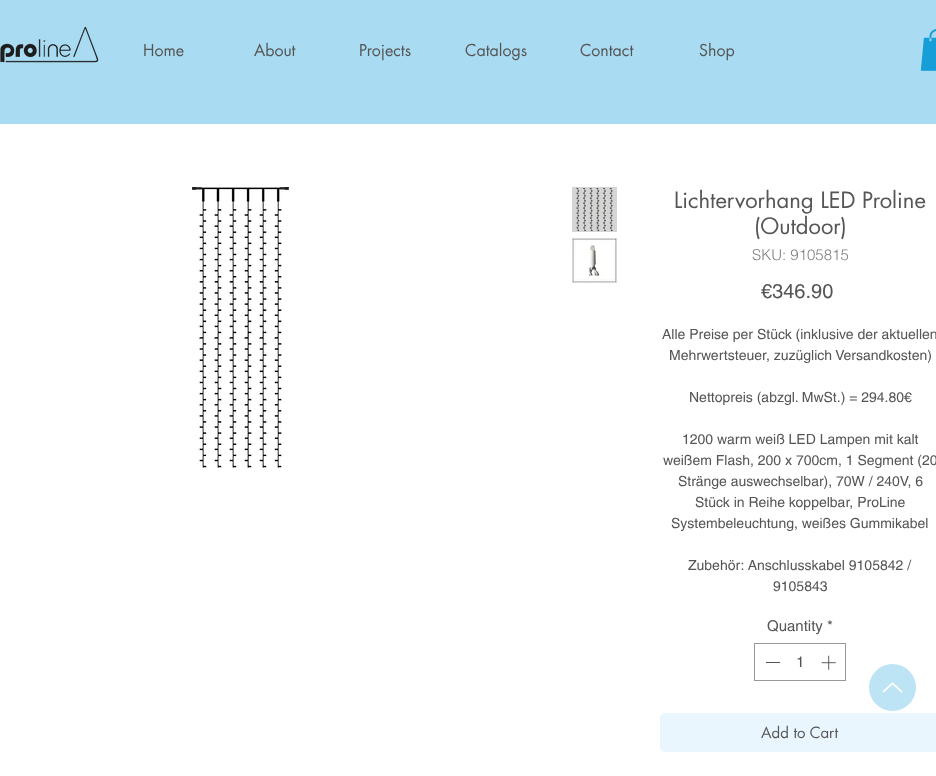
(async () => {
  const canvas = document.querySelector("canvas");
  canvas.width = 936;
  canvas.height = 776;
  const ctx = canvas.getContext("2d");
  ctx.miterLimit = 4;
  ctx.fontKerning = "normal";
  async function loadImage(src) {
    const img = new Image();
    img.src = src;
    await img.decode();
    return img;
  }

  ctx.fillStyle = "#ffffff";
  ctx.fillRect(0, 0, 936, 776);
  ctx.fillStyle = "#a9dcf2";
  ctx.fillRect(0, 0, 936, 124);
  ctx.drawImage(await loadImage("img/1.png"), 0, 26, 99, 37);
  ctx.drawImage(await loadImage("img/2.png"), 920, 29, 16, 42);
  ctx.drawImage(await loadImage("img/3.png"), 192, 187, 97, 281);
  ctx.fillStyle = "#d5d5d5";
  ctx.fillRect(572, 187, 45, 45);
  ctx.drawImage(await loadImage("img/4.png"), 576, 188, 37, 43);
  ctx.fillRect(572, 238, 45, 45);
  ctx.drawImage(await loadImage("img/5.png"), 573, 239, 43, 43);
  ctx.strokeStyle = "#999999";
  ctx.strokeRect(754.5, 643.5, 91, 37);
  ctx.fillStyle = "#555555";
  ctx.fillRect(766, 662, 14, 1);
  ctx.drawImage(await loadImage("img/6.png"), 821, 655, 15, 15);
  ctx.fillStyle = "#eaf6fe";
  ctx.beginPath();
  ctx.roundRect(660, 713, 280, 39, 5);
  ctx.fill();
  ctx.fillStyle = "#bce4f5";
  ctx.beginPath();
  ctx.arc(892.5, 687.5, 23.5, 0, Math.PI * 2);
  ctx.fill();
  ctx.drawImage(await loadImage("img/7.png"), 882, 682, 21, 11);
  ctx.font = "16px futura";
  ctx.fillStyle = "#555555";
  for (const [text, x, y] of [
    ["Home", 143, 56],
    ["About", 254, 56],
    ["Projects", 359, 56],
    ["Catalogs", 465, 56],
    ["Contact", 580, 56],
    ["Shop", 699, 56],
  ]) {
    ctx.fillText(text, x, y);
  }
  ctx.font = "22px futura";
  ctx.fillText("Lichtervorhang LED Proline", 674, 208);
  ctx.fillText("(Outdoor)", 754, 234);
  ctx.font = "300 15px helvetica";
  ctx.fillStyle = "#808080";
  ctx.fillText("SKU: 9105815", 752, 260);
  ctx.font = "20px helvetica";
  ctx.fillStyle = "#555555";
  ctx.fillText("€346.90", 761, 298);
  ctx.font = "14px helvetica";
  for (const [text, x, y] of [
    ["Alle Preise per Stück (inklusive der aktuellen", 662, 339],
    ["Mehrwertsteuer, zuzüglich Versandkosten)", 669, 360],
    ["Nettopreis (abzgl. MwSt.) = 294.80€", 689, 402],
    ["1200 warm weiß LED Lampen mit kalt", 682, 444],
    ["weißem Flash, 200 x 700cm, 1 Segment (20", 663, 465],
    ["Stränge auswechselbar), 70W / 240V, 6", 678, 486],
    ["Stück in Reihe koppelbar, ProLine", 695, 507],
    ["Systembeleuchtung, weißes Gummikabel", 671, 528],
    ["Zubehör: Anschlusskabel 9105842 /", 688, 570],
    ["9105843", 773, 591],
  ]) {
    ctx.fillText(text, x, y);
  }
  ctx.font = "15px helvetica";
  ctx.fillText("Quantity *", 767, 631);
  ctx.fillText("1", 796, 667);
  ctx.font = "15px futura";
  ctx.fillText("Add to Cart", 761, 738);
})();
